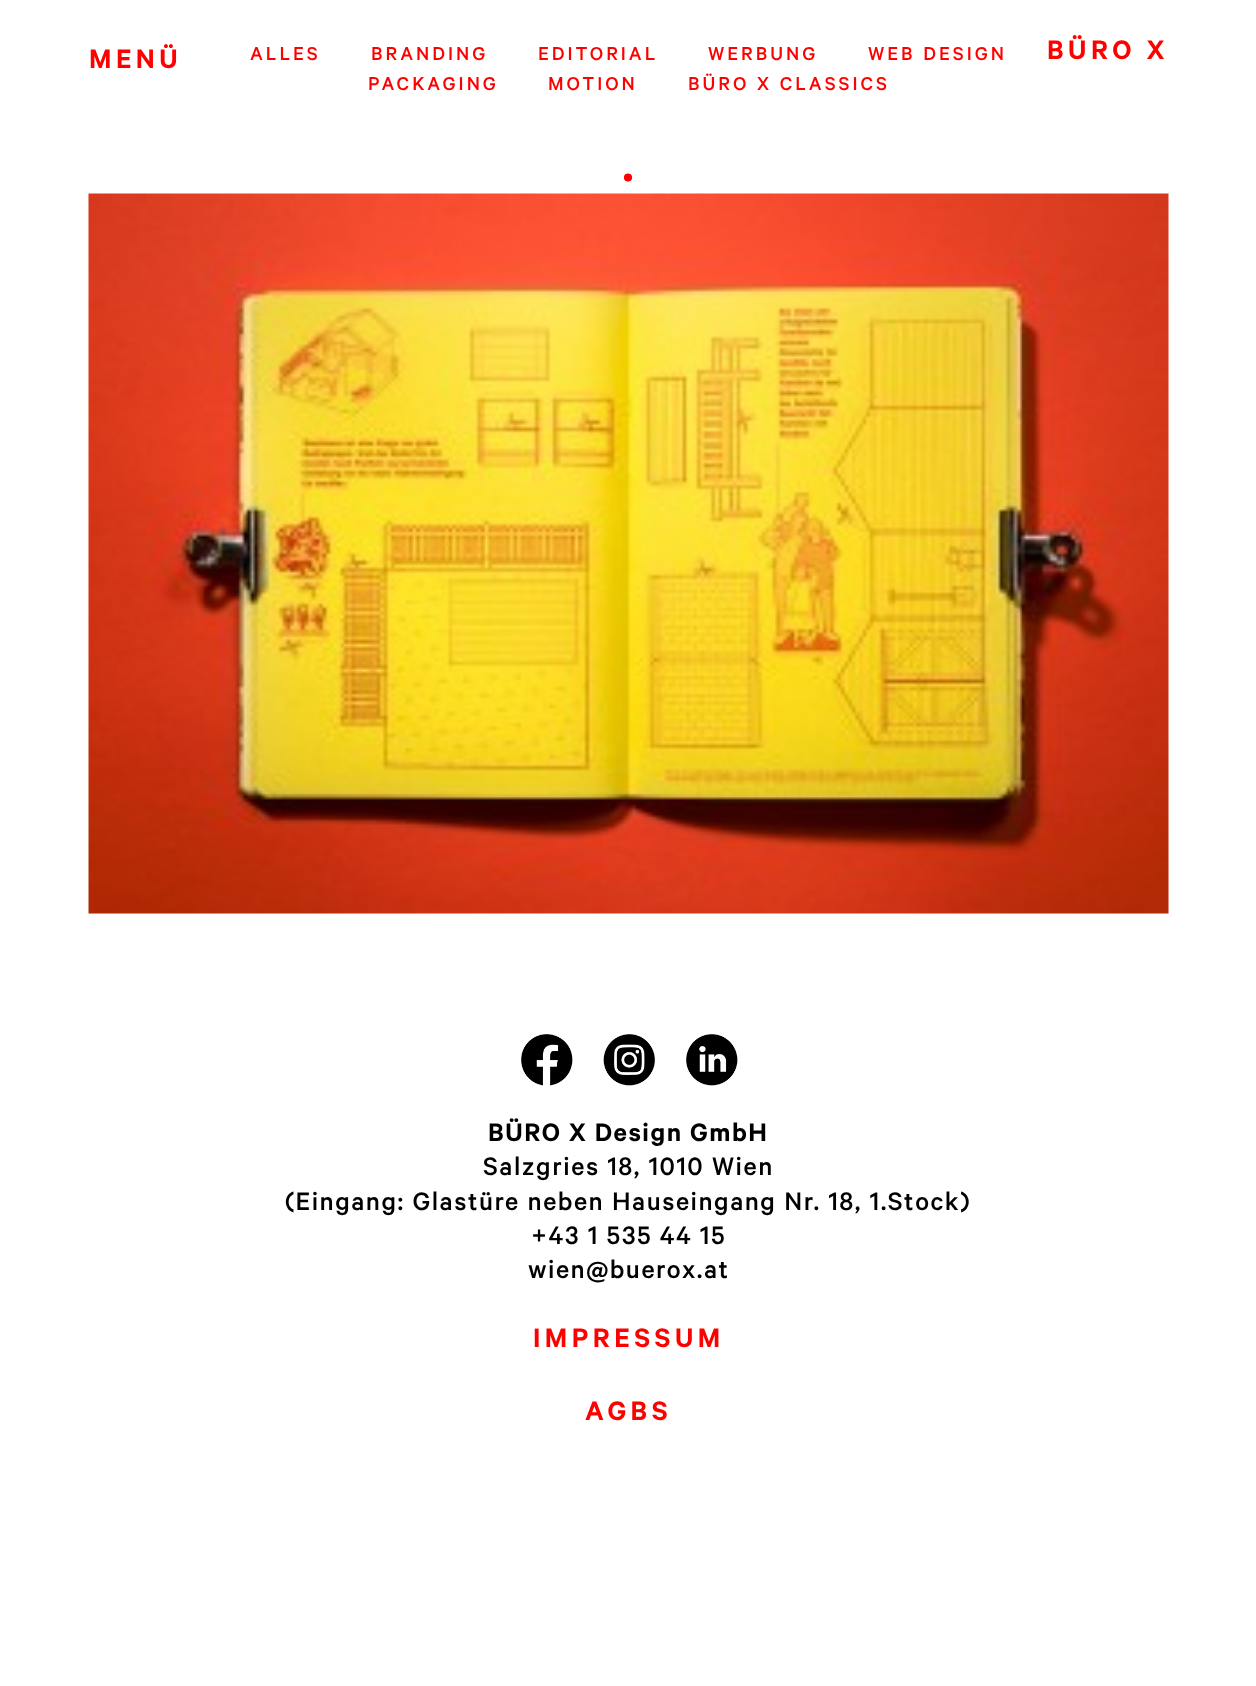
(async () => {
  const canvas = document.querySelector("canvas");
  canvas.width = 1256;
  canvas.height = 1686;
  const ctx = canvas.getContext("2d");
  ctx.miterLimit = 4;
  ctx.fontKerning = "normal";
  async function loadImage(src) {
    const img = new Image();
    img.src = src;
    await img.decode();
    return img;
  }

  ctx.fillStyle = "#ffffff";
  ctx.fillRect(0, 0, 1256, 1686);
  ctx.drawImage(await loadImage("img/1.png"), 88, 193, 1081, 721);
  ctx.drawImage(await loadImage("img/2.png"), 521, 1034, 52, 52);
  ctx.drawImage(await loadImage("img/3.png"), 603, 1034, 52, 52);
  ctx.drawImage(await loadImage("img/4.png"), 686, 1034, 52, 52);
  ctx.letterSpacing = "4.5px";
  ctx.font = "600 30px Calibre";
  ctx.fillStyle = "#ff0000";
  ctx.fillText("MENÜ", 89, 68);
  ctx.letterSpacing = "3px";
  ctx.font = "500 21px Calibre";
  for (const [text, x, y] of [
    ["ALLES", 250, 60],
    ["BRANDING", 371, 60],
    ["EDITORIAL", 538, 60],
    ["WERBUNG", 708, 60],
    ["WEB DESIGN", 868, 60],
    ["PACKAGING", 368, 90],
    ["MOTION", 548, 90],
    ["BÜRO X CLASSICS", 688, 90],
  ]) {
    ctx.fillText(text, x, y);
  }
  ctx.letterSpacing = "4.5px";
  ctx.font = "600 30px Calibre";
  ctx.fillText("BÜRO X", 1047, 59);
  ctx.letterSpacing = "1.5px";
  ctx.font = "500 28.5px Calibre";
  ctx.fillText("•", 623, 185);
  ctx.font = "600 28.5px Calibre";
  ctx.fillStyle = "#000000";
  ctx.fillText("BÜRO X Design GmbH", 488, 1141);
  ctx.font = "500 28.5px Calibre";
  for (const [text, x, y] of [
    ["Salzgries 18, 1010 Wien", 483, 1175],
    ["(Eingang: Glastüre neben Hauseingang Nr. 18, 1.Stock)", 285, 1210],
    ["+43 1 535 44 15", 531, 1244],
    ["wien@buerox.at", 528, 1278],
  ]) {
    ctx.fillText(text, x, y);
  }
  ctx.letterSpacing = "4.5px";
  ctx.font = "600 30px Calibre";
  ctx.fillStyle = "#ff0000";
  ctx.fillText("IMPRESSUM", 533, 1347);
  ctx.fillText("AGBS", 585, 1420);
})();
